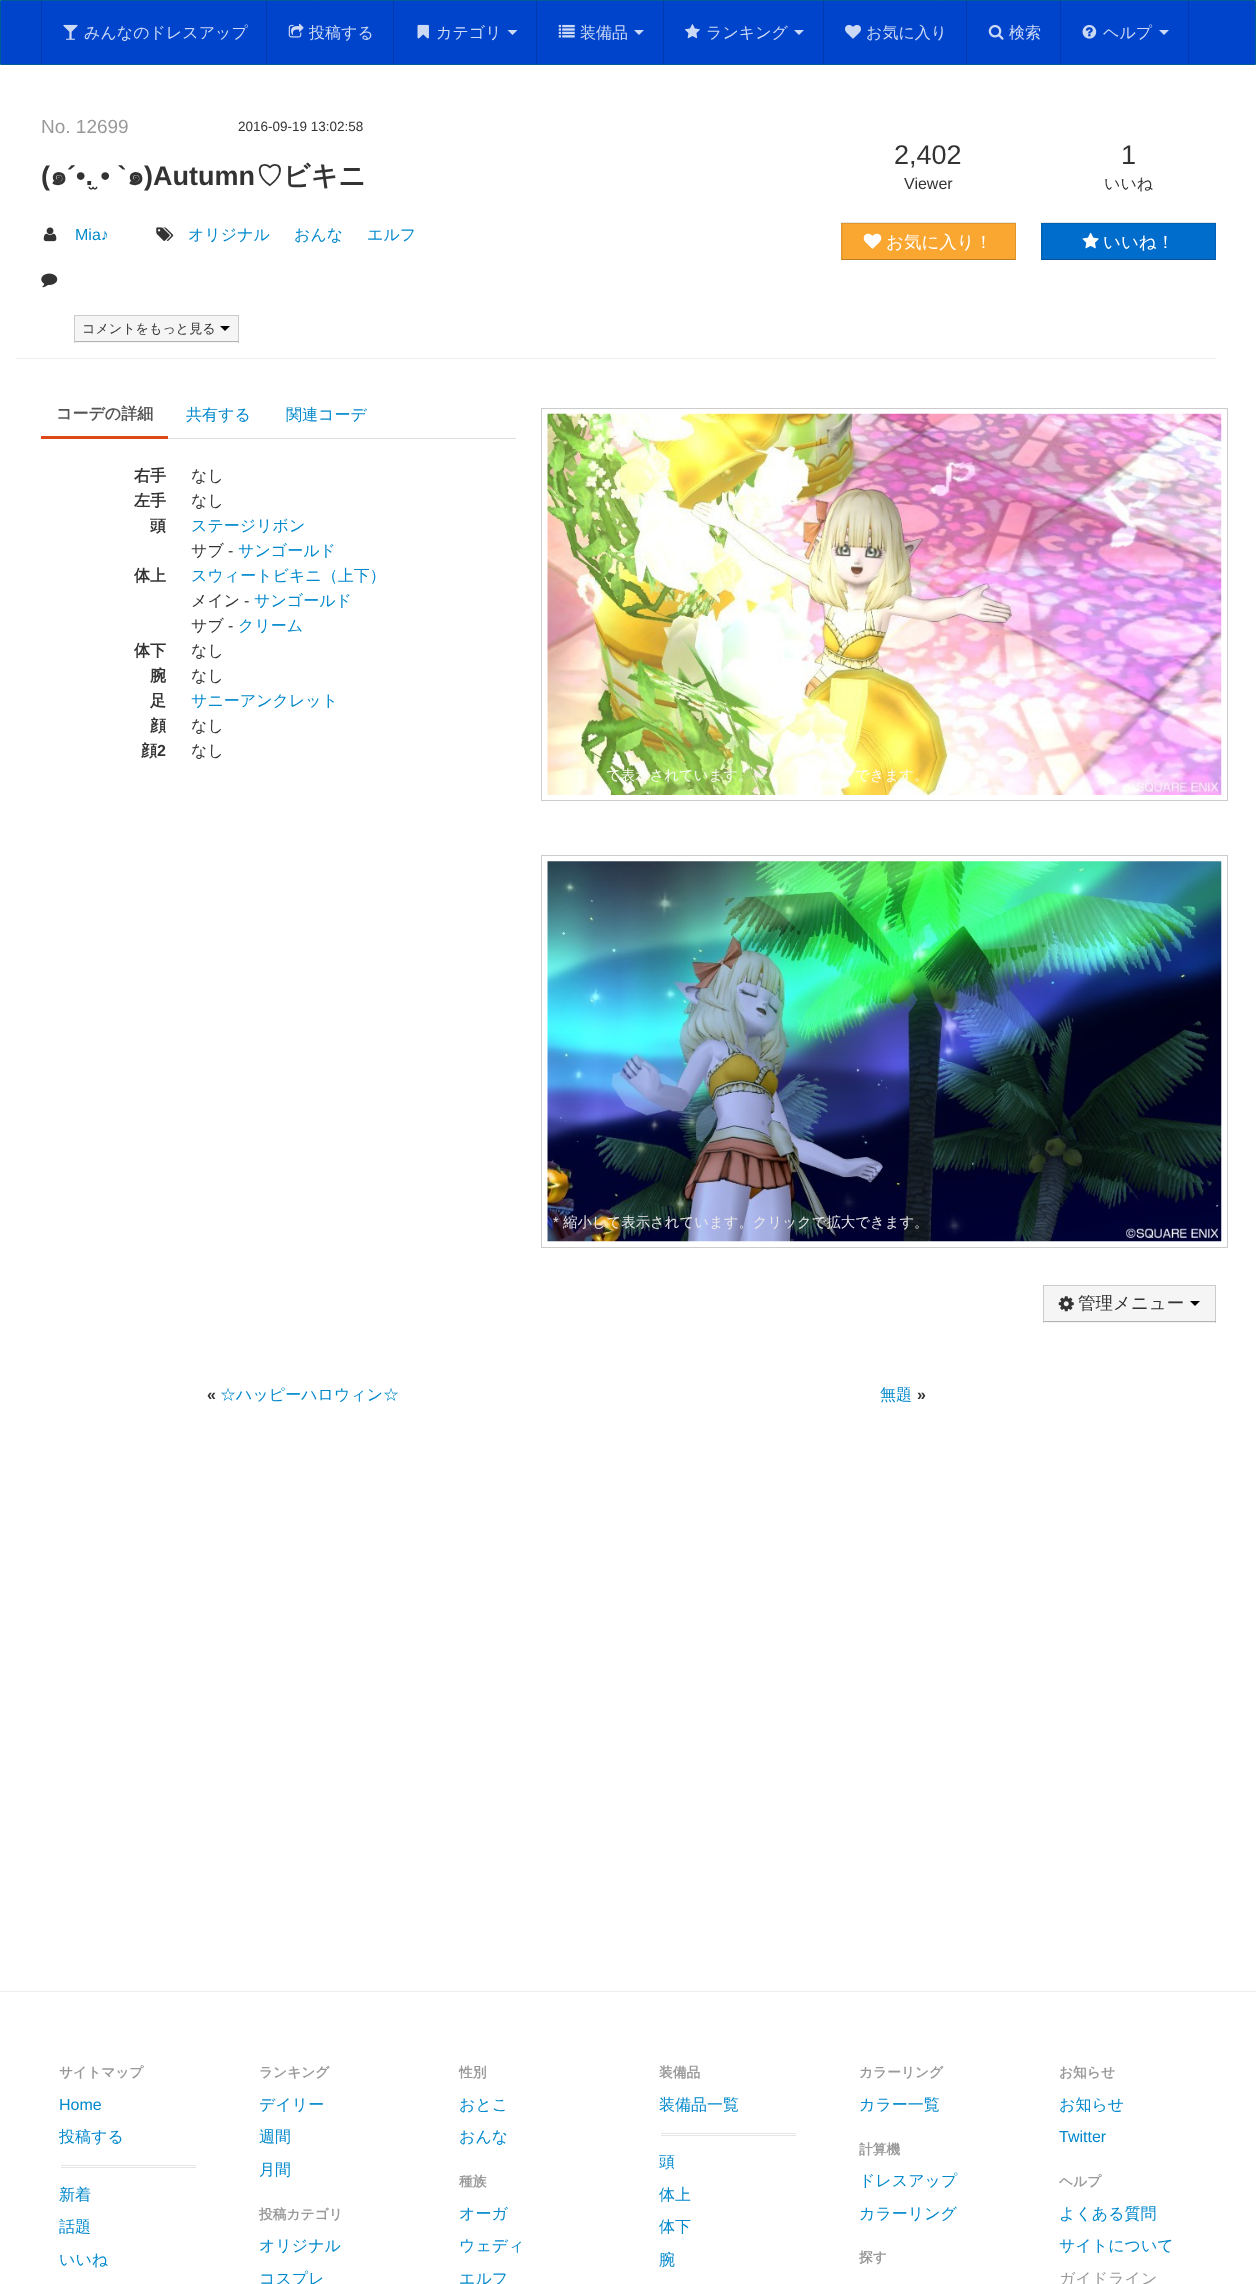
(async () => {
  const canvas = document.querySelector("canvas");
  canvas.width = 1256;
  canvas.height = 2284;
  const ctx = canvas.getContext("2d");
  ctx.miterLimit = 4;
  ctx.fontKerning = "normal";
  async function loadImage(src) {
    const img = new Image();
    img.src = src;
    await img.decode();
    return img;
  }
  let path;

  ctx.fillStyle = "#ffffff";
  ctx.fillRect(0, 0, 1256, 2284);
  ctx.fillStyle = "#0044cc";
  ctx.beginPath();
  ctx.rect(0.5, 0.5, 1255, 64);
  ctx.fill();
  ctx.strokeStyle = "#005a96";
  ctx.stroke();
  ctx.fillStyle = "#003aad";
  ctx.fillRect(266, 1, 1, 63);
  ctx.fillRect(41, 1, 1, 63);
  ctx.drawImage(await loadImage("img/1.png"), 63, 24, 15, 16);
  ctx.fillRect(393, 1, 1, 63);
  ctx.drawImage(await loadImage("img/2.png"), 288, 23, 16, 15);
  ctx.fillRect(536, 1, 1, 63);
  ctx.drawImage(await loadImage("img/3.png"), 417, 24, 12, 15);
  ctx.fillStyle = "#ccdaf5";
  path = new Path2D("M507.5 30H517.5L512.5 35Z");
  ctx.fill(path);
  ctx.fillStyle = "#003aad";
  ctx.fillRect(663, 1, 1, 63);
  ctx.drawImage(await loadImage("img/4.png"), 558, 24, 17, 14);
  ctx.fillStyle = "#ccdaf5";
  path = new Path2D("M634 30H644L639 35Z");
  ctx.fill(path);
  ctx.fillStyle = "#003aad";
  ctx.fillRect(823, 1, 1, 63);
  ctx.drawImage(await loadImage("img/5.png"), 685, 24, 15, 15);
  ctx.fillStyle = "#ccdaf5";
  path = new Path2D("M794 30H804L799 35Z");
  ctx.fill(path);
  ctx.fillStyle = "#003aad";
  ctx.fillRect(966, 1, 1, 63);
  ctx.drawImage(await loadImage("img/6.png"), 845, 24, 16, 15);
  ctx.fillRect(1060, 1, 1, 63);
  ctx.drawImage(await loadImage("img/7.png"), 988, 24, 16, 16);
  ctx.fillRect(1188, 1, 1, 63);
  ctx.drawImage(await loadImage("img/8.png"), 1082, 24, 15, 15);
  ctx.fillStyle = "#ccdaf5";
  path = new Path2D("M1159 30H1169L1164 35Z");
  ctx.fill(path);
  ctx.fillStyle = "#eeeeee";
  ctx.fillRect(16, 358, 1200, 1);
  ctx.drawImage(await loadImage("img/9.png"), 43, 227, 14, 15);
  ctx.drawImage(await loadImage("img/10.png"), 156, 227, 18, 14);
  ctx.drawImage(await loadImage("img/11.png"), 41, 273, 17, 15);
  for (const [x, y, w, h, color] of [
    [75, 316, 163, 27, "#f5f5f5"],
    [74, 315, 165, 1, "#cccccc"],
    [238, 315, 1, 28, "#cccccc"],
    [74, 341, 165, 1, "#b3b3b3"],
    [74, 315, 1, 28, "#cccccc"],
  ]) {
    ctx.fillStyle = color;
    ctx.fillRect(x, y, w, h);
  }
  ctx.fillStyle = "#000000";
  path = new Path2D("M220 326H230L225 331Z");
  ctx.fill(path);
  ctx.fillStyle = "#faa732";
  ctx.fillRect(841, 223, 175, 37);
  ctx.fillStyle = "rgba(0, 0, 0, 0.1)";
  path = new Path2D("M841 222H1016L1015 224H842Z");
  ctx.fill(path);
  path = new Path2D("M1016 222.5V260L1015 259V224Z");
  ctx.fill(path);
  ctx.fillStyle = "rgba(0, 0, 0, 0.25)";
  path = new Path2D("M1016 260H841L842 259H1015Z");
  ctx.fill(path);
  ctx.fillStyle = "rgba(0, 0, 0, 0.1)";
  path = new Path2D("M841 260V222.5L842.5 224V259Z");
  ctx.fill(path);
  ctx.drawImage(await loadImage("img/12.png"), 863, 233, 19, 16);
  ctx.fillStyle = "#006dcc";
  ctx.fillRect(1041, 223, 175, 37);
  ctx.fillStyle = "rgba(0, 0, 0, 0.1)";
  path = new Path2D("M1041 222H1216L1215 224H1042Z");
  ctx.fill(path);
  path = new Path2D("M1216 222.5V260L1215 259V224Z");
  ctx.fill(path);
  ctx.fillStyle = "rgba(0, 0, 0, 0.25)";
  path = new Path2D("M1216 260H1041L1042 259H1215Z");
  ctx.fill(path);
  ctx.fillStyle = "rgba(0, 0, 0, 0.1)";
  path = new Path2D("M1041 260V222.5L1042.5 224V259Z");
  ctx.fill(path);
  ctx.drawImage(await loadImage("img/13.png"), 1082, 232, 17, 17);
  ctx.fillStyle = "#dddddd";
  ctx.fillRect(168, 438, 348, 1);
  ctx.fillStyle = "#dd4814";
  ctx.fillRect(41, 436, 127, 3);
  ctx.strokeStyle = "#cccccc";
  ctx.strokeRect(541.5, 408.5, 686, 392);
  ctx.drawImage(await loadImage("img/14.png"), 547, 413, 675, 382);
  ctx.strokeRect(541.5, 855.5, 686, 392);
  ctx.drawImage(await loadImage("img/15.png"), 547, 861, 675, 381);
  for (const [x, y, w, h, color] of [
    [1044, 1286, 171, 37, "#f5f5f5"],
    [1043, 1285, 173, 1, "#cccccc"],
    [1215, 1285, 1, 38, "#cccccc"],
    [1043, 1321, 173, 1, "#b3b3b3"],
    [1043, 1285, 1, 38, "#cccccc"],
  ]) {
    ctx.fillStyle = color;
    ctx.fillRect(x, y, w, h);
  }
  ctx.drawImage(await loadImage("img/16.png"), 1058, 1296, 16, 16);
  ctx.fillStyle = "#000000";
  path = new Path2D("M1190 1301H1200L1195 1306Z");
  ctx.fill(path);
  for (const [x, y, w, h, color] of [
    [0, 1991, 1256, 1, "#eeeeee"],
    [61, 2165, 135, 3, "#e5e5e5"],
    [61, 2166, 135, 1, "#ffffff"],
    [661, 2133, 135, 3, "#e5e5e5"],
    [661, 2134, 135, 1, "#ffffff"],
  ]) {
    ctx.fillStyle = color;
    ctx.fillRect(x, y, w, h);
  }
  ctx.font = "500 16px WenQuanYi Zen Hei";
  ctx.fillStyle = "#ccdaf5";
  for (const [text, x, y] of [
    ["みんなのドレスアップ", 84, 38],
    ["投稿する", 309, 38],
    ["カテゴリ", 436, 38],
    ["装備品", 580, 38],
    ["ランキング", 706, 38],
    ["お気に入り", 866, 38],
    ["検索", 1009, 38],
    ["ヘルプ", 1103, 38],
  ]) {
    ctx.fillText(text, x, y);
  }
  ctx.font = "19px Liberation Sans";
  ctx.fillStyle = "#999999";
  ctx.fillText("No. 12699", 41, 133);
  ctx.font = "13.5px Liberation Sans";
  ctx.fillStyle = "#333333";
  ctx.fillText("2016-09-19 13:02:58", 238, 131);
  ctx.font = "bold 27px Liberation Sans";
  ctx.fillText("(", 41, 185);
  ctx.font = "bold 27px Loma";
  ctx.fillText("๑", 50, 185);
  ctx.font = "bold 27px Liberation Sans";
  ctx.fillText("´•.̫ • `", 67, 185);
  ctx.font = "bold 27px Loma";
  ctx.fillText("๑", 127, 185);
  ctx.font = "bold 27px Liberation Sans";
  ctx.fillText(")Autumn", 144, 185);
  ctx.font = "bold 27px WenQuanYi Zen Hei";
  ctx.fillText("♡ビキニ", 256, 185);
  ctx.font = "16px Liberation Sans";
  ctx.fillStyle = "#0088cc";
  ctx.fillText("Mia♪", 75, 240);
  ctx.font = "500 16px WenQuanYi Zen Hei";
  for (const [text, x, y] of [
    ["オリジナル", 188, 240],
    ["おんな", 294, 240],
    ["エルフ", 367, 240],
  ]) {
    ctx.fillText(text, x, y);
  }
  ctx.font = "500 13.1px WenQuanYi Zen Hei";
  ctx.fillStyle = "#333333";
  ctx.fillText("コメントをもっと見る", 82, 333);
  ctx.font = "27px Liberation Sans";
  ctx.fillText("2,402", 894, 164);
  ctx.font = "16px Liberation Sans";
  ctx.fillText("Viewer", 904, 189);
  ctx.font = "500 17.5px WenQuanYi Zen Hei";
  ctx.fillStyle = "#ffffff";
  ctx.fillText("お気に入り！", 886, 248);
  ctx.font = "27px Liberation Sans";
  ctx.fillStyle = "#333333";
  ctx.fillText("1", 1121, 164);
  ctx.font = "500 16px WenQuanYi Zen Hei";
  ctx.fillText("いいね", 1104, 189);
  ctx.font = "500 17.5px WenQuanYi Zen Hei";
  ctx.fillStyle = "#ffffff";
  ctx.fillText("いいね！", 1103, 248);
  ctx.font = "bold 16px WenQuanYi Zen Hei";
  ctx.fillStyle = "#555555";
  ctx.fillText("コーデの詳細", 56, 419);
  ctx.font = "500 16px WenQuanYi Zen Hei";
  ctx.fillStyle = "#0088cc";
  ctx.fillText("共有する", 186, 420);
  ctx.fillText("関連コーデ", 286, 420);
  ctx.font = "bold 16px WenQuanYi Zen Hei";
  ctx.fillStyle = "#333333";
  ctx.fillText("右手", 134, 481);
  ctx.font = "500 16px WenQuanYi Zen Hei";
  ctx.fillText("なし", 191, 481);
  ctx.font = "bold 16px WenQuanYi Zen Hei";
  ctx.fillText("左手", 134, 506);
  ctx.font = "500 16px WenQuanYi Zen Hei";
  ctx.fillText("なし", 191, 506);
  ctx.font = "bold 16px WenQuanYi Zen Hei";
  ctx.fillText("頭", 150, 531);
  ctx.font = "500 16px WenQuanYi Zen Hei";
  ctx.fillStyle = "#0088cc";
  ctx.fillText("ステージリボン", 191, 531);
  ctx.fillStyle = "#333333";
  ctx.fillText("サブ", 191, 556);
  ctx.font = "16px Liberation Sans";
  ctx.fillText("-", 228, 556);
  ctx.font = "500 16px WenQuanYi Zen Hei";
  ctx.fillStyle = "#0088cc";
  ctx.fillText("サンゴールド", 238, 556);
  ctx.font = "bold 16px WenQuanYi Zen Hei";
  ctx.fillStyle = "#333333";
  ctx.fillText("体上", 134, 581);
  ctx.font = "500 16px WenQuanYi Zen Hei";
  ctx.fillStyle = "#0088cc";
  ctx.fillText("スウィートビキニ（上下）", 191, 581);
  ctx.fillStyle = "#333333";
  ctx.fillText("メイン", 191, 606);
  ctx.font = "16px Liberation Sans";
  ctx.fillText("-", 244, 606);
  ctx.font = "500 16px WenQuanYi Zen Hei";
  ctx.fillStyle = "#0088cc";
  ctx.fillText("サンゴールド", 254, 606);
  ctx.fillStyle = "#333333";
  ctx.fillText("サブ", 191, 631);
  ctx.font = "16px Liberation Sans";
  ctx.fillText("-", 228, 631);
  ctx.font = "500 16px WenQuanYi Zen Hei";
  ctx.fillStyle = "#0088cc";
  ctx.fillText("クリーム", 238, 631);
  ctx.font = "bold 16px WenQuanYi Zen Hei";
  ctx.fillStyle = "#333333";
  ctx.fillText("体下", 134, 656);
  ctx.font = "500 16px WenQuanYi Zen Hei";
  ctx.fillText("なし", 191, 656);
  ctx.font = "bold 16px WenQuanYi Zen Hei";
  ctx.fillText("腕", 150, 681);
  ctx.font = "500 16px WenQuanYi Zen Hei";
  ctx.fillText("なし", 191, 681);
  ctx.font = "bold 16px WenQuanYi Zen Hei";
  ctx.fillText("足", 150, 706);
  ctx.font = "500 16px WenQuanYi Zen Hei";
  ctx.fillStyle = "#0088cc";
  ctx.fillText("サニーアンクレット", 191, 706);
  ctx.font = "bold 16px WenQuanYi Zen Hei";
  ctx.fillStyle = "#333333";
  ctx.fillText("顔", 150, 731);
  ctx.font = "500 16px WenQuanYi Zen Hei";
  ctx.fillText("なし", 191, 731);
  ctx.font = "bold 16px WenQuanYi Zen Hei";
  ctx.fillText("顔", 141, 756);
  ctx.font = "bold 16px Liberation Sans";
  ctx.fillText("2", 157, 756);
  ctx.font = "500 16px WenQuanYi Zen Hei";
  ctx.fillText("なし", 191, 756);
  ctx.font = "500 14.4px WenQuanYi Zen Hei";
  ctx.fillStyle = "#fbfcf5";
  ctx.fillText("て表示されています。", 606, 780);
  ctx.fillText("できます。", 855, 780);
  ctx.font = "14.4px Liberation Sans";
  ctx.fillStyle = "#eae8e9";
  ctx.fillText("*", 553, 1227);
  ctx.font = "500 14.4px WenQuanYi Zen Hei";
  ctx.fillText("縮小して表示されています。クリックで拡大できます。", 563, 1227);
  ctx.font = "500 17.5px WenQuanYi Zen Hei";
  ctx.fillStyle = "#333333";
  ctx.fillText("管理メニュー", 1078, 1309);
  ctx.font = "bold 16px Liberation Sans";
  ctx.fillText("«", 207, 1400);
  ctx.font = "500 16px WenQuanYi Zen Hei";
  ctx.fillStyle = "#0088cc";
  ctx.fillText("☆ハッピーハロウィン☆", 220, 1400);
  ctx.fillText("無題", 880, 1400);
  ctx.font = "bold 16px Liberation Sans";
  ctx.fillStyle = "#333333";
  ctx.fillText("»", 917, 1400);
  ctx.font = "bold 13.75px WenQuanYi Zen Hei";
  ctx.fillStyle = "#999999";
  ctx.fillText("サイトマップ", 59, 2077);
  ctx.font = "16px Liberation Sans";
  ctx.fillStyle = "#0088cc";
  ctx.fillText("Home", 59, 2110);
  ctx.font = "500 16px WenQuanYi Zen Hei";
  for (const [text, x, y] of [
    ["投稿する", 59, 2142],
    ["新着", 59, 2200],
    ["話題", 59, 2232],
    ["いいね", 59, 2265],
  ]) {
    ctx.fillText(text, x, y);
  }
  ctx.font = "bold 13.75px WenQuanYi Zen Hei";
  ctx.fillStyle = "#999999";
  ctx.fillText("ランキング", 259, 2077);
  ctx.font = "500 16px WenQuanYi Zen Hei";
  ctx.fillStyle = "#0088cc";
  for (const [text, x, y] of [
    ["デイリー", 259, 2110],
    ["週間", 259, 2142],
    ["月間", 259, 2175],
  ]) {
    ctx.fillText(text, x, y);
  }
  ctx.font = "bold 13.75px WenQuanYi Zen Hei";
  ctx.fillStyle = "#999999";
  ctx.fillText("投稿カテゴリ", 259, 2219);
  ctx.font = "500 16px WenQuanYi Zen Hei";
  ctx.fillStyle = "#0088cc";
  ctx.fillText("オリジナル", 259, 2251);
  ctx.fillText("コスプレ", 259, 2284);
  ctx.font = "bold 13.75px WenQuanYi Zen Hei";
  ctx.fillStyle = "#999999";
  ctx.fillText("性別", 459, 2077);
  ctx.font = "500 16px WenQuanYi Zen Hei";
  ctx.fillStyle = "#0088cc";
  ctx.fillText("おとこ", 459, 2110);
  ctx.fillText("おんな", 459, 2142);
  ctx.font = "bold 13.75px WenQuanYi Zen Hei";
  ctx.fillStyle = "#999999";
  ctx.fillText("種族", 459, 2186);
  ctx.font = "500 16px WenQuanYi Zen Hei";
  ctx.fillStyle = "#0088cc";
  for (const [text, x, y] of [
    ["オーガ", 459, 2219],
    ["ウェディ", 459, 2251],
    ["エルフ", 459, 2284],
  ]) {
    ctx.fillText(text, x, y);
  }
  ctx.font = "bold 13.75px WenQuanYi Zen Hei";
  ctx.fillStyle = "#999999";
  ctx.fillText("装備品", 659, 2077);
  ctx.font = "500 16px WenQuanYi Zen Hei";
  ctx.fillStyle = "#0088cc";
  for (const [text, x, y] of [
    ["装備品一覧", 659, 2110],
    ["頭", 659, 2167],
    ["体上", 659, 2200],
    ["体下", 659, 2232],
    ["腕", 659, 2265],
  ]) {
    ctx.fillText(text, x, y);
  }
  ctx.font = "bold 13.75px WenQuanYi Zen Hei";
  ctx.fillStyle = "#999999";
  ctx.fillText("カラーリング", 859, 2077);
  ctx.font = "500 16px WenQuanYi Zen Hei";
  ctx.fillStyle = "#0088cc";
  ctx.fillText("カラー一覧", 859, 2110);
  ctx.font = "bold 13.75px WenQuanYi Zen Hei";
  ctx.fillStyle = "#999999";
  ctx.fillText("計算機", 859, 2154);
  ctx.font = "500 16px WenQuanYi Zen Hei";
  ctx.fillStyle = "#0088cc";
  ctx.fillText("ドレスアップ", 859, 2186);
  ctx.fillText("カラーリング", 859, 2219);
  ctx.font = "bold 13.75px WenQuanYi Zen Hei";
  ctx.fillStyle = "#999999";
  ctx.fillText("探す", 859, 2262);
  ctx.fillText("お知らせ", 1059, 2077);
  ctx.font = "500 16px WenQuanYi Zen Hei";
  ctx.fillStyle = "#0088cc";
  ctx.fillText("お知らせ", 1059, 2110);
  ctx.font = "16px Liberation Sans";
  ctx.fillText("Twitter", 1059, 2142);
  ctx.font = "bold 13.75px WenQuanYi Zen Hei";
  ctx.fillStyle = "#999999";
  ctx.fillText("ヘルプ", 1059, 2186);
  ctx.font = "500 16px WenQuanYi Zen Hei";
  ctx.fillStyle = "#0088cc";
  ctx.fillText("よくある質問", 1059, 2219);
  ctx.fillText("サイトについて", 1059, 2251);
  ctx.fillStyle = "#999999";
  ctx.fillText("ガイドライン", 1059, 2284);
})();
